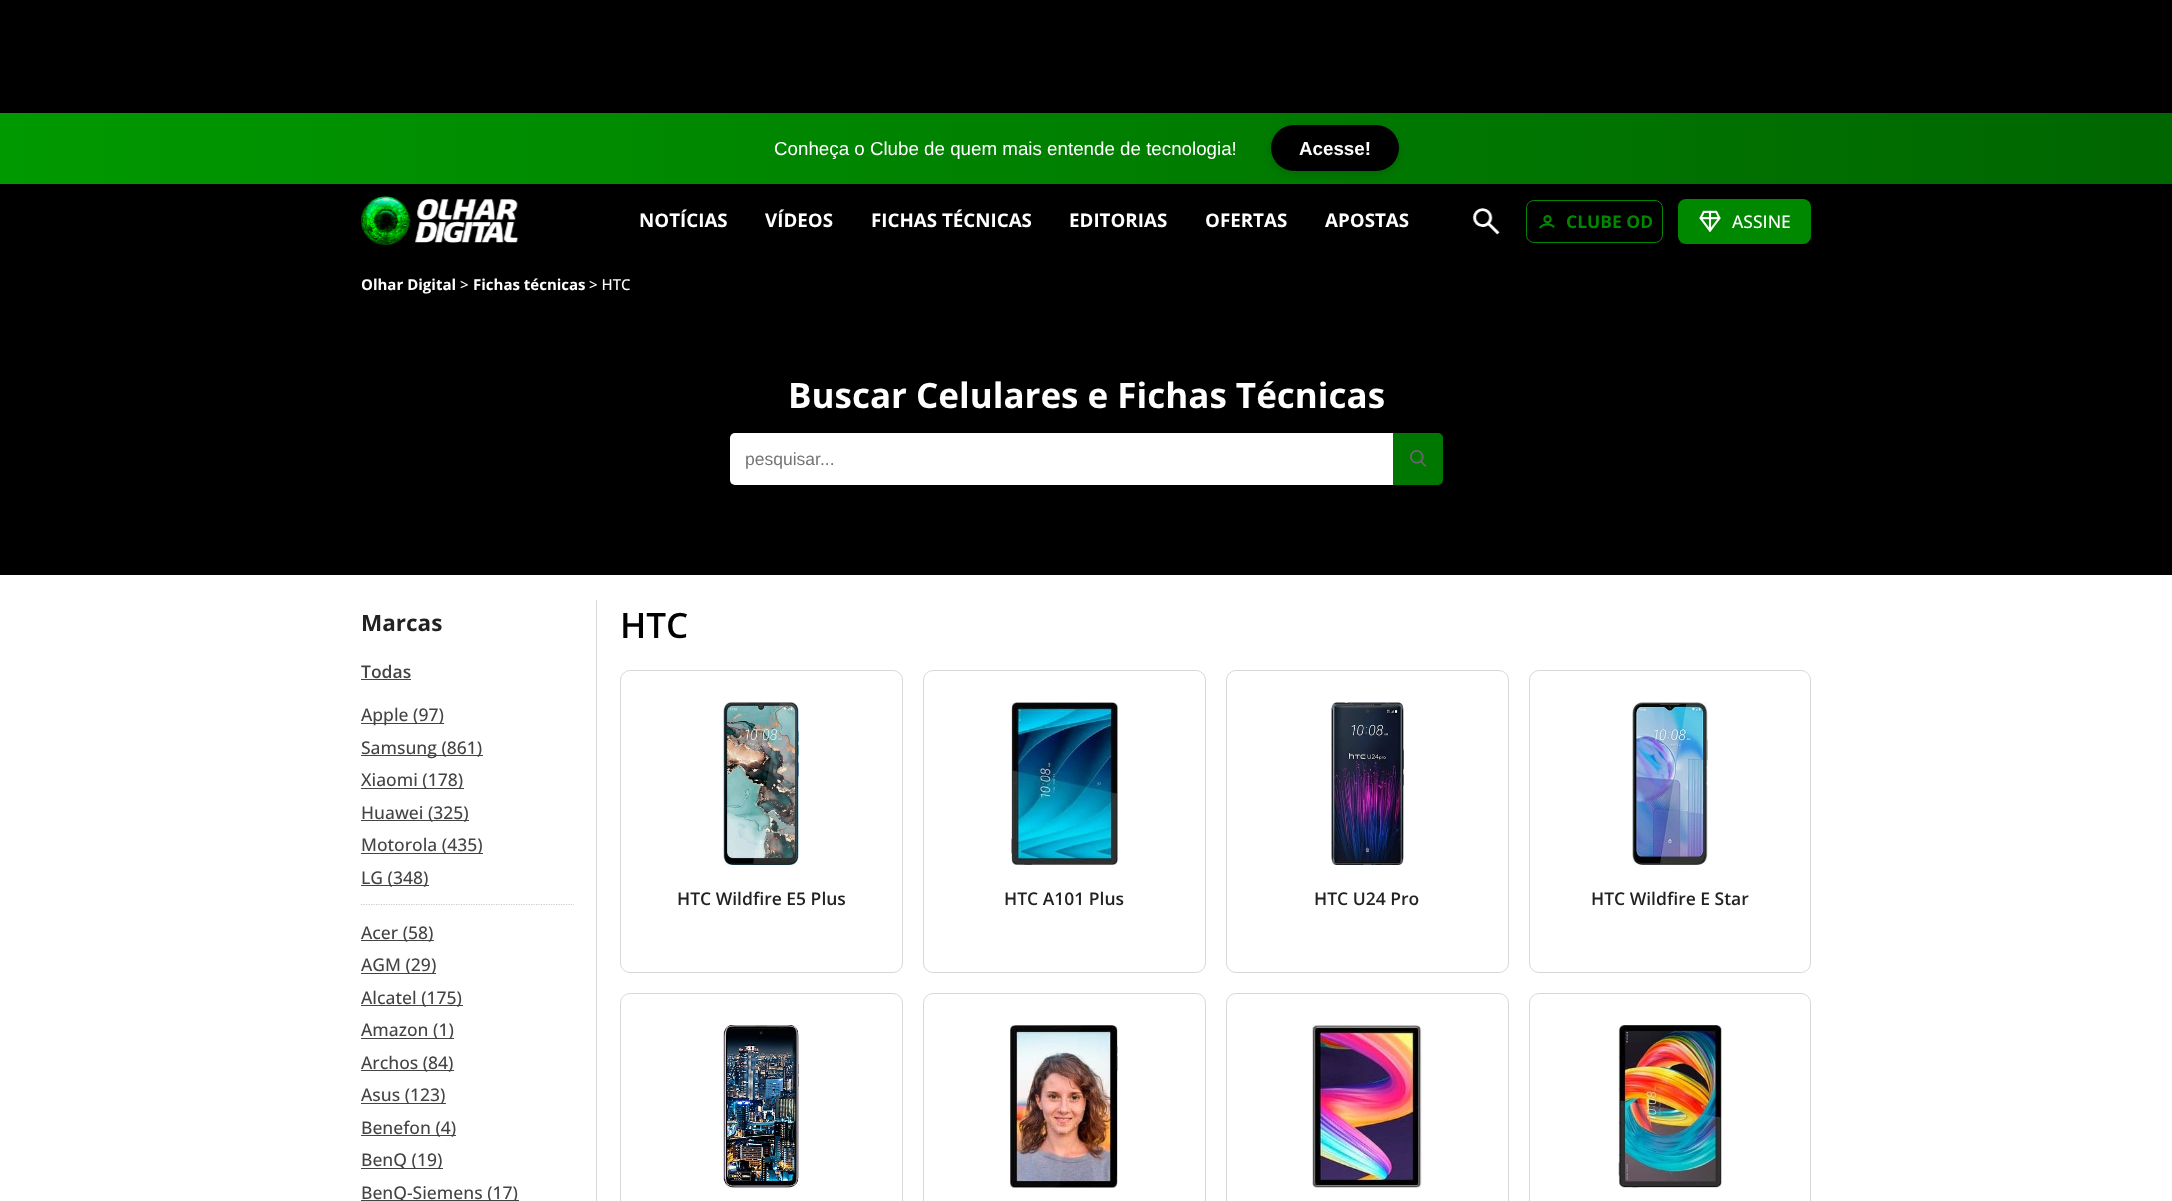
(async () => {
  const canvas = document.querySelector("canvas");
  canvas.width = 2172;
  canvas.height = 1201;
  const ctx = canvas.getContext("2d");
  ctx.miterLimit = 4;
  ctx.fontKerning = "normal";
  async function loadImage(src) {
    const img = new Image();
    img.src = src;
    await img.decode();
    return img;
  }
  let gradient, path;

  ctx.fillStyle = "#ffffff";
  ctx.fillRect(0, 0, 2172, 1201);
  ctx.fillStyle = "#000000";
  ctx.fillRect(0, 0, 2172, 113);
  gradient = ctx.createLinearGradient(0, 148, 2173, 148);
  gradient.addColorStop(0, "#009900");
  gradient.addColorStop(1, "#006600");
  ctx.fillStyle = gradient;
  ctx.fillRect(0, 113, 2172, 71);
  ctx.fillStyle = "rgba(0, 0, 0, 0.15)";
  ctx.filter = "blur(4px)";
  ctx.beginPath();
  ctx.roundRect(1271, 128, 128, 46, 23);
  ctx.fill();
  ctx.filter = "none";
  ctx.fillStyle = "#000000";
  ctx.beginPath();
  ctx.roundRect(1271, 125, 128, 46, 23);
  ctx.fill();
  ctx.fillRect(0, 259, 2172, 316);
  ctx.filter = "blur(2px)";
  ctx.beginPath();
  ctx.rect(3, 189, 2167, 70);
  ctx.fill();
  ctx.filter = "none";
  ctx.fillRect(0, 184, 2172, 75);
  ctx.drawImage(await loadImage("img/1.png"), 361, 196, 158, 49);
  ctx.drawImage(await loadImage("img/2.png"), 1472, 208, 28, 27);
  ctx.beginPath();
  ctx.roundRect(1526.5, 200.5, 136, 42, 7.5);
  ctx.strokeStyle = "#008800";
  ctx.stroke();
  ctx.drawImage(await loadImage("img/3.png"), 1539, 215, 16, 14);
  ctx.fillStyle = "#008800";
  ctx.beginPath();
  ctx.roundRect(1678, 199, 133, 45, 8);
  ctx.fill();
  ctx.drawImage(await loadImage("img/4.png"), 1699, 210, 22, 22);
  ctx.fillStyle = "#ffffff";
  ctx.beginPath();
  ctx.roundRect(730, 433, 663, 52, [5, 0, 0, 5]);
  ctx.fill();
  ctx.fillStyle = "#007700";
  ctx.beginPath();
  ctx.roundRect(1393, 433, 50, 52, [0, 5, 5, 0]);
  ctx.fill();
  ctx.drawImage(await loadImage("img/5.png"), 1410, 450, 16, 17);
  for (const [x, y, w, h, color] of [
    [361, 679, 50, 1, "#444444"],
    [361, 723, 83, 1, "#444444"],
    [361, 755, 122, 1, "#444444"],
    [361, 788, 103, 1, "#444444"],
    [361, 820, 108, 1, "#444444"],
    [361, 853, 122, 1, "#444444"],
    [361, 885, 68, 1, "#444444"],
  ]) {
    ctx.fillStyle = color;
    ctx.fillRect(x, y, w, h);
  }
  path = new Path2D("M361 904.5H574");
  ctx.strokeStyle = "#cccccc";
  ctx.lineWidth = 1.2;
  ctx.setLineDash([1.25, 1.25]);
  ctx.stroke(path);
  for (const [x, y, w, h, color] of [
    [361, 940, 73, 1, "#444444"],
    [361, 973, 75, 1, "#444444"],
    [361, 1005, 102, 1, "#444444"],
    [361, 1038, 93, 1, "#444444"],
    [361, 1070, 93, 1, "#444444"],
    [361, 1103, 85, 1, "#444444"],
    [361, 1135, 95, 1, "#444444"],
    [361, 1168, 82, 1, "#444444"],
    [361, 1200, 158, 1, "#444444"],
    [596, 600, 1, 601, "#d8d8d8"],
  ]) {
    ctx.fillStyle = color;
    ctx.fillRect(x, y, w, h);
  }
  ctx.beginPath();
  ctx.roundRect(620.5, 670.5, 282, 302, 9.5);
  ctx.strokeStyle = "#d8d8d8";
  ctx.lineWidth = 1;
  ctx.setLineDash([]);
  ctx.stroke();
  ctx.drawImage(await loadImage("img/6.png"), 723, 702, 76, 163);
  ctx.beginPath();
  ctx.roundRect(923.5, 670.5, 282, 302, 9.5);
  ctx.stroke();
  ctx.drawImage(await loadImage("img/7.png"), 1011, 702, 107, 163);
  ctx.beginPath();
  ctx.roundRect(1226.5, 670.5, 282, 302, 9.5);
  ctx.stroke();
  ctx.drawImage(await loadImage("img/8.png"), 1331, 702, 73, 163);
  ctx.beginPath();
  ctx.roundRect(1529.5, 670.5, 281, 302, 9.5);
  ctx.stroke();
  ctx.drawImage(await loadImage("img/9.png"), 1632, 702, 76, 163);
  ctx.beginPath();
  ctx.roundRect(620.5, 993.5, 282, 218, 9.5);
  ctx.stroke();
  ctx.drawImage(await loadImage("img/10.png"), 723, 1025, 76, 163);
  ctx.beginPath();
  ctx.roundRect(923.5, 993.5, 282, 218, 9.5);
  ctx.stroke();
  ctx.drawImage(await loadImage("img/11.png"), 1010, 1025, 108, 163);
  ctx.beginPath();
  ctx.roundRect(1226.5, 993.5, 282, 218, 9.5);
  ctx.stroke();
  ctx.drawImage(await loadImage("img/12.png"), 1312, 1025, 110, 163);
  ctx.beginPath();
  ctx.roundRect(1529.5, 993.5, 281, 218, 9.5);
  ctx.stroke();
  ctx.drawImage(await loadImage("img/13.png"), 1618, 1025, 104, 163);
  ctx.font = "18.75px Liberation Sans";
  ctx.fillStyle = "#ffffff";
  ctx.fillText("Conheça o Clube de quem mais entende de tecnologia!", 774, 155);
  ctx.font = "bold 18.75px Liberation Sans";
  ctx.fillText("Acesse!", 1299, 155);
  ctx.font = "bold 18.75px Open Sans";
  for (const [text, x, y] of [
    ["NOTÍCIAS", 639, 227],
    ["VÍDEOS", 765, 227],
    ["FICHAS TÉCNICAS", 871, 227],
    ["EDITORIAS", 1069, 227],
    ["OFERTAS", 1205, 227],
    ["APOSTAS", 1325, 227],
  ]) {
    ctx.fillText(text, x, y);
  }
  ctx.font = "bold 17.5px Open Sans";
  ctx.fillStyle = "#008800";
  ctx.fillText("CLUBE OD", 1566, 228);
  ctx.font = "500 17.5px Open Sans";
  ctx.fillStyle = "#ffffff";
  ctx.fillText("ASSINE", 1732, 228);
  ctx.font = "bold 15px Open Sans";
  ctx.fillText("Olhar Digital", 361, 290);
  ctx.font = "500 15px Open Sans";
  ctx.fillText(">", 460, 290);
  ctx.font = "bold 15px Open Sans";
  ctx.fillText("Fichas técnicas", 473, 290);
  ctx.font = "500 15px Open Sans";
  ctx.fillText("> HTC", 589, 290);
  ctx.font = "bold 35px Open Sans";
  ctx.fillText("Buscar Celulares e Fichas Técnicas", 788, 408);
  ctx.font = "17.5px Liberation Sans";
  ctx.fillStyle = "#757575";
  ctx.fillText("pesquisar...", 745, 465);
  ctx.font = "bold 22.5px Open Sans";
  ctx.fillStyle = "#222222";
  ctx.fillText("Marcas", 361, 631);
  ctx.font = "600 17.5px Open Sans";
  ctx.fillStyle = "#444444";
  ctx.fillText("Todas", 361, 678);
  ctx.font = "500 17.5px Open Sans";
  for (const [text, x, y] of [
    ["Apple (97)", 361, 721],
    ["Samsung (861)", 361, 754],
    ["Xiaomi (178)", 361, 786],
    ["Huawei (325)", 361, 819],
    ["Motorola (435)", 361, 851],
    ["LG (348)", 361, 884],
    ["Acer (58)", 361, 939],
    ["AGM (29)", 361, 971],
    ["Alcatel (175)", 361, 1004],
    ["Amazon (1)", 361, 1036],
    ["Archos (84)", 361, 1069],
    ["Asus (123)", 361, 1101],
    ["Benefon (4)", 361, 1134],
    ["BenQ (19)", 361, 1166],
    ["BenQ-Siemens (17)", 361, 1199],
  ]) {
    ctx.fillText(text, x, y);
  }
  ctx.font = "600 35px Open Sans";
  ctx.fillStyle = "#000000";
  ctx.fillText("HTC", 620, 638);
  ctx.font = "600 17.5px Open Sans";
  ctx.fillStyle = "#222222";
  for (const [text, x, y] of [
    ["HTC Wildfire E5 Plus", 677, 905],
    ["HTC A101 Plus", 1004, 905],
    ["HTC U24 Pro", 1314, 905],
    ["HTC Wildfire E Star", 1591, 905],
  ]) {
    ctx.fillText(text, x, y);
  }
})();
